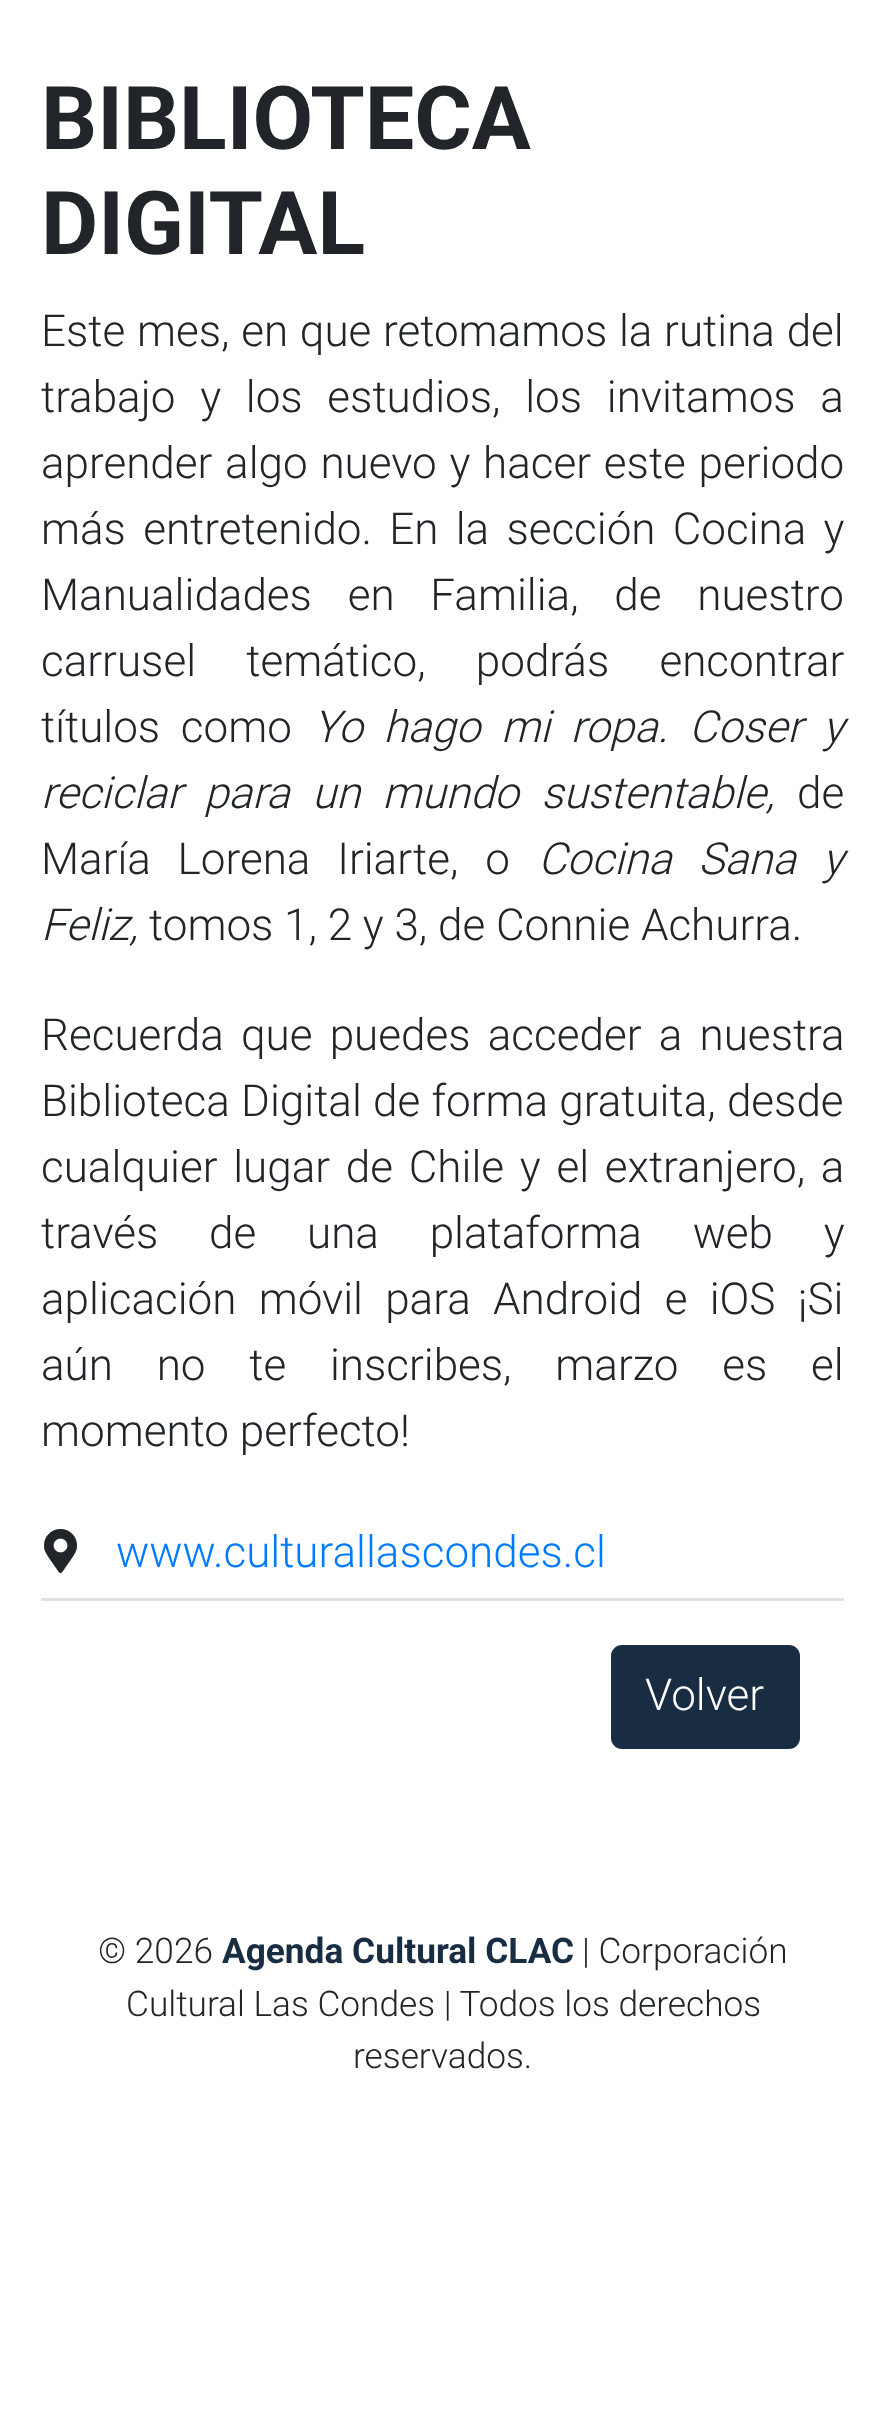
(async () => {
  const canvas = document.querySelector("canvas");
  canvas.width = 885;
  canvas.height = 2419;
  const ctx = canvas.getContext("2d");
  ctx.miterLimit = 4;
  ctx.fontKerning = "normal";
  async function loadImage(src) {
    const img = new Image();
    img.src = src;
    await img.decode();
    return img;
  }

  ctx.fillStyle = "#ffffff";
  ctx.fillRect(0, 0, 885, 2419);
  ctx.drawImage(await loadImage("img/1.png"), 44, 1529, 33, 44);
  ctx.fillStyle = "#dee2e6";
  ctx.fillRect(41, 1598, 803, 3);
  ctx.fillStyle = "#182d42";
  ctx.beginPath();
  ctx.roundRect(612.5, 1646.5, 186, 101, 9.5);
  ctx.fill();
  ctx.strokeStyle = "#182d42";
  ctx.lineWidth = 3;
  ctx.stroke();
  ctx.font = "bold 88px Roboto";
  ctx.fillStyle = "#212529";
  ctx.fillText("BIBLIOTECA", 41, 149);
  ctx.fillText("DIGITAL", 41, 254);
  ctx.wordSpacing = "1px";
  ctx.font = "300 44px Roboto";
  ctx.fillText("Este mes, en que retomamos la rutina del", 41, 346);
  ctx.wordSpacing = "14px";
  ctx.fillText("trabajo y los estudios, los invitamos a", 41, 412);
  ctx.wordSpacing = "2px";
  ctx.fillText("aprender algo nuevo y hacer este periodo", 41, 478);
  ctx.wordSpacing = "6.5px";
  ctx.fillText("más entretenido. En la sección Cocina y", 41, 544);
  ctx.wordSpacing = "25px";
  ctx.fillText("Manualidades en Familia, de nuestro", 41, 610);
  ctx.wordSpacing = "39.5px";
  ctx.fillText("carrusel temático, podrás encontrar", 41, 676);
  ctx.wordSpacing = "10px";
  ctx.fillText("títulos como", 41, 742);
  ctx.font = "italic 300 44px Roboto";
  ctx.fillText("Yo hago mi ropa. Coser y", 313, 742);
  ctx.wordSpacing = "11.5px";
  ctx.fillText("reciclar para un mundo sustentable,", 41, 808);
  ctx.wordSpacing = "0px";
  ctx.font = "300 44px Roboto";
  ctx.fillText("de", 797, 808);
  ctx.wordSpacing = "16px";
  ctx.fillText("María Lorena Iriarte, o", 41, 874);
  ctx.font = "italic 300 44px Roboto";
  ctx.fillText("Cocina Sana y", 538, 874);
  ctx.wordSpacing = "0px";
  ctx.fillText("Feliz,", 41, 940);
  ctx.font = "300 44px Roboto";
  ctx.fillText("tomos 1, 2 y 3, de Connie Achurra.", 149, 940);
  ctx.wordSpacing = "6.5px";
  ctx.fillText("Recuerda que puedes acceder a nuestra", 41, 1050);
  ctx.wordSpacing = "0.5px";
  ctx.fillText("Biblioteca Digital de forma gratuita, desde", 41, 1116);
  ctx.wordSpacing = "5px";
  ctx.fillText("cualquier lugar de Chile y el extranjero, a", 41, 1182);
  ctx.wordSpacing = "40px";
  ctx.fillText("través de una plataforma web y", 41, 1248);
  ctx.wordSpacing = "11.5px";
  ctx.fillText("aplicación móvil para Android e iOS ¡Si", 41, 1314);
  ctx.wordSpacing = "33px";
  ctx.fillText("aún no te inscribes, marzo es el", 41, 1380);
  ctx.wordSpacing = "0px";
  ctx.fillText("momento perfecto!", 41, 1446);
  ctx.fillStyle = "#007bff";
  ctx.fillText("www.culturallascondes.cl", 116, 1567);
  ctx.fillStyle = "#ffffff";
  ctx.fillText("Volver", 645, 1710);
  ctx.font = "300 35.25px Roboto";
  ctx.fillStyle = "#212529";
  ctx.fillText("© 2026", 98, 1963);
  ctx.font = "bold 35.25px Roboto";
  ctx.fillStyle = "#182d42";
  ctx.fillText("Agenda Cultural CLAC", 222, 1963);
  ctx.font = "300 35.25px Roboto";
  ctx.fillStyle = "#212529";
  for (const [text, x, y] of [
    ["| Corporación", 582, 1963],
    ["Cultural Las Condes | Todos los derechos", 126, 2016],
    ["reservados.", 353, 2068],
  ]) {
    ctx.fillText(text, x, y);
  }
})();
